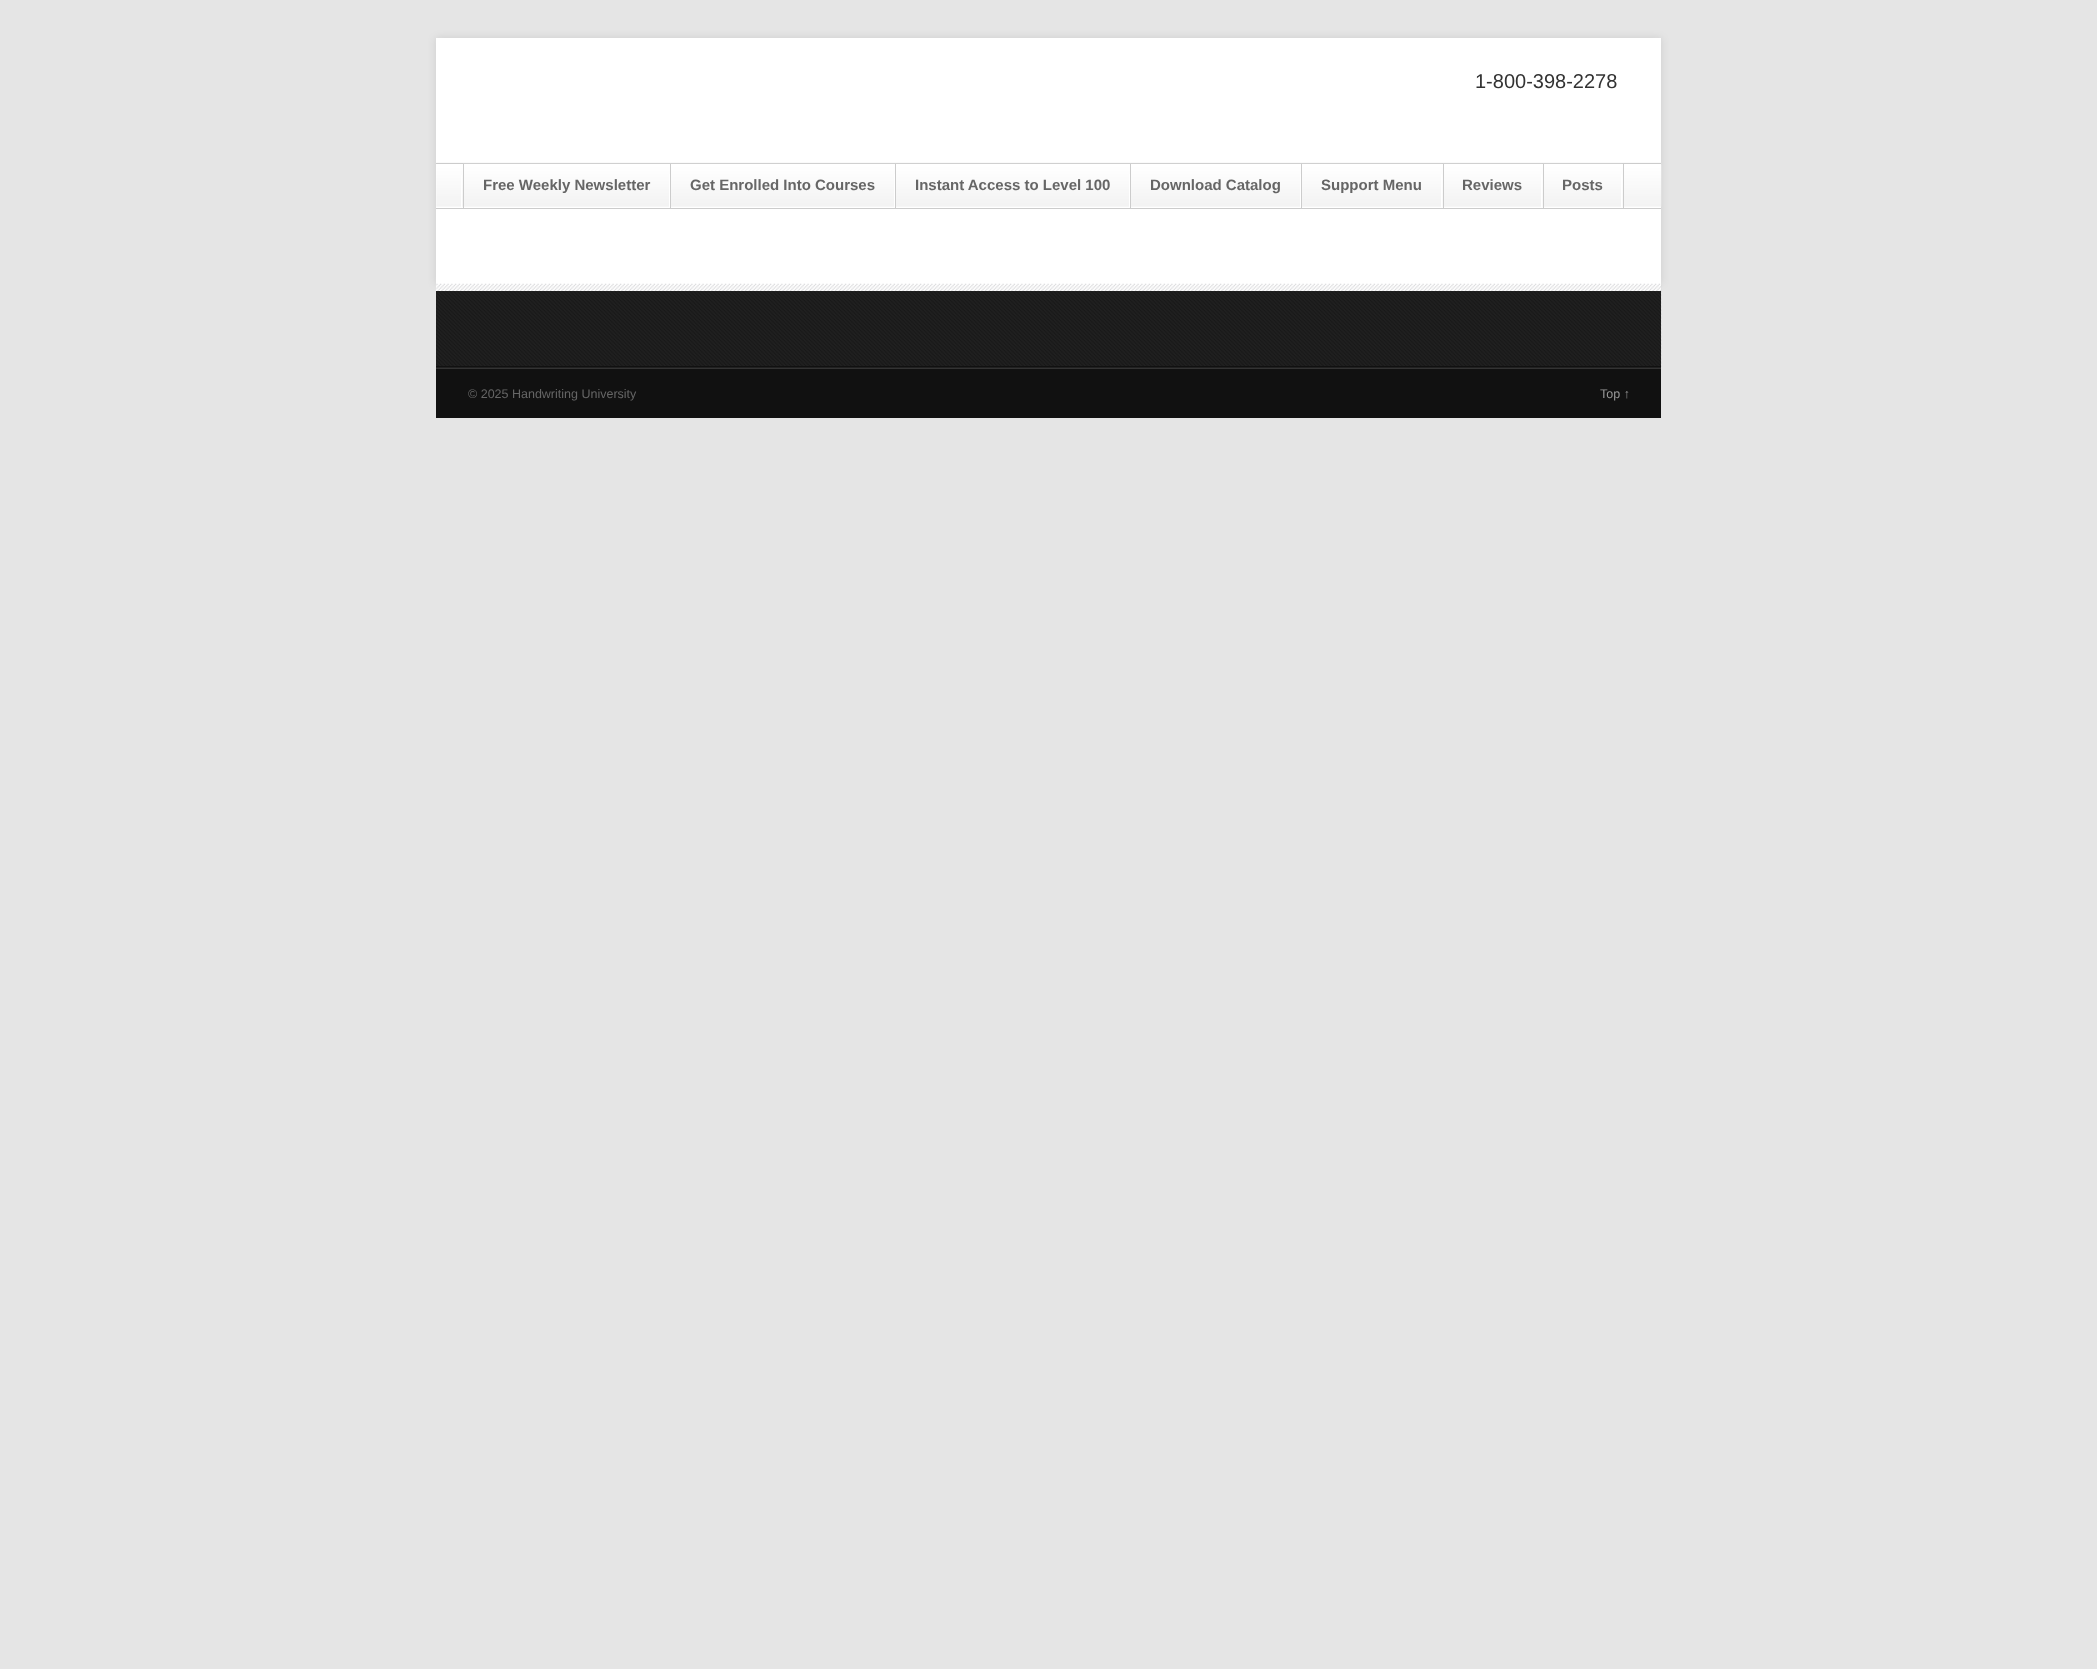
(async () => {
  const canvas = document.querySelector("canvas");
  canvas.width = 2097;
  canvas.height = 1669;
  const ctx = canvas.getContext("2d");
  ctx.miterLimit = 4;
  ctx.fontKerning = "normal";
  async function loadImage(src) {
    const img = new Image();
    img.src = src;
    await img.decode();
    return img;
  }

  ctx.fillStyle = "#e5e5e5";
  ctx.fillRect(0, 0, 2097, 1669);
  ctx.fillStyle = "rgba(0, 0, 0, 0.1)";
  ctx.filter = "blur(4px)";
  ctx.beginPath();
  ctx.rect(436, 38, 1225, 246);
  ctx.fill();
  ctx.filter = "none";
  ctx.fillStyle = "#ffffff";
  ctx.fillRect(436, 38, 1225, 253);
  ctx.drawImage(await loadImage("img/1.png"), 436, 162, 1226, 45);
  for (const [x, y, w, h, color] of [
    [436, 163, 1225, 1, "#cccccc"],
    [436, 208, 1225, 1, "#cccccc"],
    [1623, 164, 1, 44, "#cccccc"],
    [461, 175, 1, 33, "#ffffff"],
    [464, 175, 205, 32, "#ffffff"],
  ]) {
    ctx.fillStyle = color;
    ctx.fillRect(x, y, w, h);
  }
  ctx.drawImage(await loadImage("img/2.png"), 463, 163, 207, 44);
  for (const [x, y, w, h, color] of [
    [669, 174, 1, 34, "#ffffff"],
    [463, 164, 1, 44, "#cccccc"],
    [671, 175, 223, 32, "#ffffff"],
  ]) {
    ctx.fillStyle = color;
    ctx.fillRect(x, y, w, h);
  }
  ctx.drawImage(await loadImage("img/3.png"), 670, 163, 225, 44);
  for (const [x, y, w, h, color] of [
    [894, 174, 1, 34, "#ffffff"],
    [670, 164, 1, 44, "#cccccc"],
    [896, 175, 233, 32, "#ffffff"],
  ]) {
    ctx.fillStyle = color;
    ctx.fillRect(x, y, w, h);
  }
  ctx.drawImage(await loadImage("img/4.png"), 895, 163, 235, 44);
  for (const [x, y, w, h, color] of [
    [1129, 174, 1, 34, "#ffffff"],
    [895, 164, 1, 44, "#cccccc"],
    [1131, 175, 169, 32, "#ffffff"],
  ]) {
    ctx.fillStyle = color;
    ctx.fillRect(x, y, w, h);
  }
  ctx.drawImage(await loadImage("img/5.png"), 1130, 163, 171, 44);
  for (const [x, y, w, h, color] of [
    [1300, 174, 1, 34, "#ffffff"],
    [1130, 164, 1, 44, "#cccccc"],
    [1302, 175, 141, 32, "#ffffff"],
  ]) {
    ctx.fillStyle = color;
    ctx.fillRect(x, y, w, h);
  }
  ctx.drawImage(await loadImage("img/6.png"), 1301, 163, 142, 44);
  for (const [x, y, w, h, color] of [
    [1441, 174, 1, 34, "#ffffff"],
    [1301, 164, 1, 44, "#cccccc"],
    [1444, 175, 99, 32, "#ffffff"],
  ]) {
    ctx.fillStyle = color;
    ctx.fillRect(x, y, w, h);
  }
  ctx.drawImage(await loadImage("img/7.png"), 1443, 163, 100, 44);
  for (const [x, y, w, h, color] of [
    [1541, 174, 1, 34, "#ffffff"],
    [1443, 164, 1, 44, "#cccccc"],
    [1544, 175, 79, 32, "#ffffff"],
  ]) {
    ctx.fillStyle = color;
    ctx.fillRect(x, y, w, h);
  }
  ctx.drawImage(await loadImage("img/8.png"), 1543, 163, 80, 44);
  ctx.fillRect(1621, 174, 1, 34);
  ctx.fillStyle = "#cccccc";
  ctx.fillRect(1543, 164, 1, 44);
  ctx.drawImage(await loadImage("img/9.png"), 436, 283, 1226, 8);
  ctx.fillStyle = "#212121";
  ctx.fillRect(436, 291, 1225, 77);
  ctx.drawImage(await loadImage("img/10.png"), 436, 291, 1226, 76);
  for (const [x, y, w, h, color] of [
    [436, 366, 1225, 1, "#111111"],
    [436, 369, 1225, 49, "#111111"],
    [436, 368, 1225, 1, "#333333"],
  ]) {
    ctx.fillStyle = color;
    ctx.fillRect(x, y, w, h);
  }
  ctx.font = "20px Liberation Sans";
  ctx.fillText("1-800-398-2278", 1475, 88);
  ctx.font = "bold 15px Liberation Sans";
  ctx.fillStyle = "#666666";
  for (const [text, x, y] of [
    ["Free Weekly Newsletter", 483, 190],
    ["Get Enrolled Into Courses", 690, 190],
    ["Instant Access to Level 100", 915, 190],
    ["Download Catalog", 1150, 190],
    ["Support Menu", 1321, 190],
    ["Reviews", 1462, 190],
    ["Posts", 1562, 190],
  ]) {
    ctx.fillText(text, x, y);
  }
  ctx.font = "12.5px Liberation Sans";
  ctx.fillText("© 2025 Handwriting University", 468, 398);
  ctx.fillStyle = "#999999";
  ctx.fillText("Top ↑", 1600, 398);
})();
